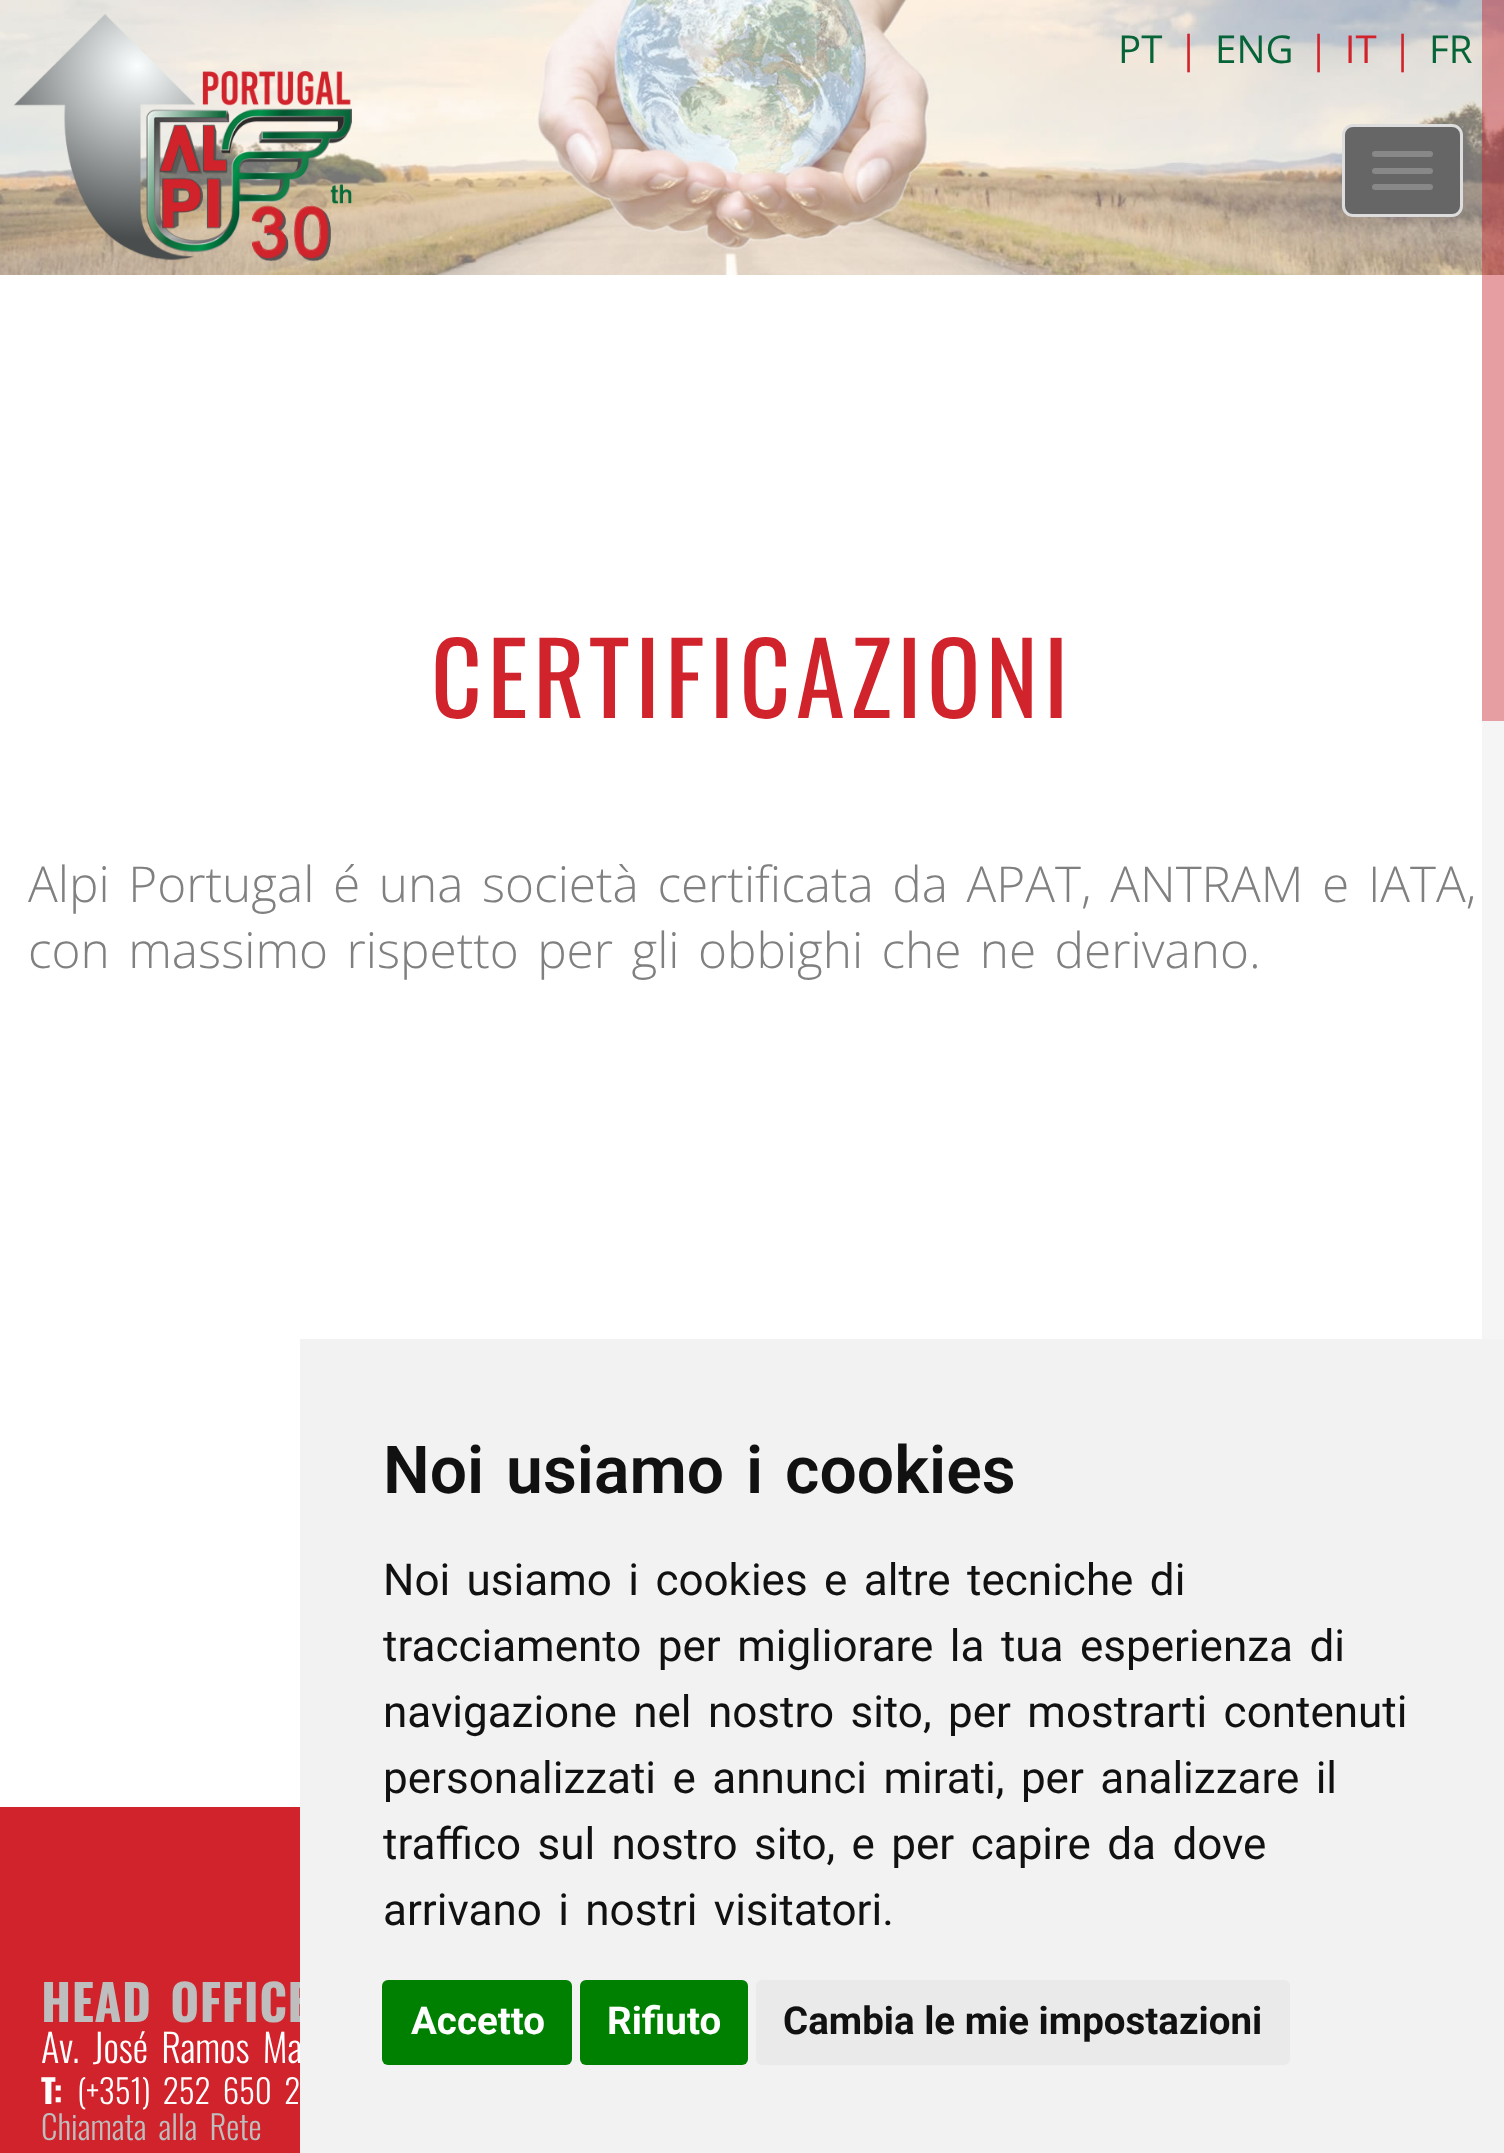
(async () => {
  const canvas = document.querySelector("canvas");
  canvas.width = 1504;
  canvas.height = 2153;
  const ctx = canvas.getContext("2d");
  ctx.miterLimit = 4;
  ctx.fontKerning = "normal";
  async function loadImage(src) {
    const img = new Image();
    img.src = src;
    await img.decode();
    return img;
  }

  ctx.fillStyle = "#ffffff";
  ctx.fillRect(0, 0, 1504, 2153);
  ctx.drawImage(await loadImage("img/2.png"), 0, 0, 1504, 275);
  ctx.drawImage(await loadImage("img/1.png"), 13, 14, 339, 248);
  ctx.fillStyle = "#666666";
  ctx.beginPath();
  ctx.roundRect(1343.5, 125.5, 118, 90, 9.5);
  ctx.fill();
  ctx.strokeStyle = "#dddddd";
  ctx.lineWidth = 3;
  ctx.stroke();
  ctx.fillStyle = "#888888";
  ctx.beginPath();
  ctx.roundRect(1372, 151, 61, 6, 3);
  ctx.fill();
  ctx.beginPath();
  ctx.roundRect(1372, 168, 61, 6, 3);
  ctx.fill();
  ctx.beginPath();
  ctx.roundRect(1372, 184, 61, 6, 3);
  ctx.fill();
  for (const [x, y, w, h, color] of [
    [1482, 0, 22, 1339, "rgba(0, 0, 0, 0.04)"],
    [1482, 0, 22, 721, "rgba(209, 35, 43, 0.41)"],
    [0, 1807, 300, 346, "#d1232b"],
  ]) {
    ctx.fillStyle = color;
    ctx.fillRect(x, y, w, h);
  }
  ctx.font = "38.5px Open Sans";
  ctx.fillStyle = "#076439";
  ctx.fillText("PT", 1118, 63);
  ctx.fillStyle = "#d1232b";
  ctx.fillText("|", 1178, 63);
  ctx.fillStyle = "#076439";
  ctx.fillText("ENG", 1215, 63);
  ctx.wordSpacing = "5.5px";
  ctx.fillStyle = "#d1232b";
  ctx.fillText("| IT |", 1308, 63);
  ctx.wordSpacing = "0px";
  ctx.fillStyle = "#076439";
  ctx.fillText("FR", 1429, 63);
  ctx.letterSpacing = "5.5px";
  ctx.font = "99px Oswald";
  ctx.fillStyle = "#d1232b";
  ctx.fillText("CERTIFICAZIONI", 431, 718);
  ctx.letterSpacing = "0px";
  ctx.wordSpacing = "5.75px";
  ctx.font = "300 49.5px Open Sans";
  ctx.fillStyle = "#808080";
  ctx.fillText("Alpi Portugal é una società certificata da APAT, ANTRAM e IATA,", 28, 902);
  ctx.wordSpacing = "5.5px";
  ctx.fillText("con massimo rispetto per gli obbighi che ne derivano.", 28, 968);
  ctx.letterSpacing = "0.5px";
  ctx.font = "bold 49.5px Oswald";
  ctx.fillStyle = "#bebebe";
  ctx.fillText("HEAD OFFICE", 41, 2022);
  ctx.letterSpacing = "0px";
  ctx.font = "300 38.5px Oswald";
  ctx.fillStyle = "#ffffff";
  ctx.fillText("Av. José Ramos Ma", 41, 2063);
  ctx.wordSpacing = "0px";
  ctx.font = "bold 33px Oswald";
  ctx.fillText("T:", 41, 2104);
  ctx.wordSpacing = "5.5px";
  ctx.font = "300 33px Oswald";
  ctx.fillText("(+351) 252 650 2", 77, 2104);
  ctx.fillStyle = "#bebebe";
  ctx.fillText("Chiamata alla Rete", 41, 2140);
  ctx.fillStyle = "#f2f2f2";
  ctx.fillRect(300, 1339, 1204, 814);
  ctx.font = "600 66px Roboto";
  ctx.fillStyle = "#111111";
  ctx.fillText("Noi usiamo i cookies", 383, 1493);
  ctx.font = "44px Roboto";
  for (const [text, x, y] of [
    ["Noi usiamo i cookies e altre tecniche di", 383, 1595],
    ["tracciamento per migliorare la tua esperienza di", 383, 1661],
    ["navigazione nel nostro sito, per mostrarti contenuti", 383, 1727],
    ["personalizzati e annunci mirati, per analizzare il", 383, 1793],
    ["traffico sul nostro sito, e per capire da dove", 383, 1859],
    ["arrivano i nostri visitatori.", 383, 1925],
  ]) {
    ctx.fillText(text, x, y);
  }
  ctx.fillStyle = "#008000";
  ctx.beginPath();
  ctx.roundRect(382, 1980, 190, 85, 6);
  ctx.fill();
  ctx.wordSpacing = "0px";
  ctx.font = "bold 38.5px Roboto";
  ctx.fillStyle = "#ffffff";
  ctx.fillText("Accetto", 411, 2034);
  ctx.fillStyle = "#008000";
  ctx.beginPath();
  ctx.roundRect(580, 1980, 168, 85, 6);
  ctx.fill();
  ctx.fillStyle = "#ffffff";
  ctx.fillText("Rifiuto", 607, 2034);
  ctx.fillStyle = "#eaeaea";
  ctx.beginPath();
  ctx.roundRect(756, 1980, 534, 85, 6);
  ctx.fill();
  ctx.fillStyle = "#111111";
  ctx.fillText("Cambia le mie impostazioni", 783, 2034);
})();
